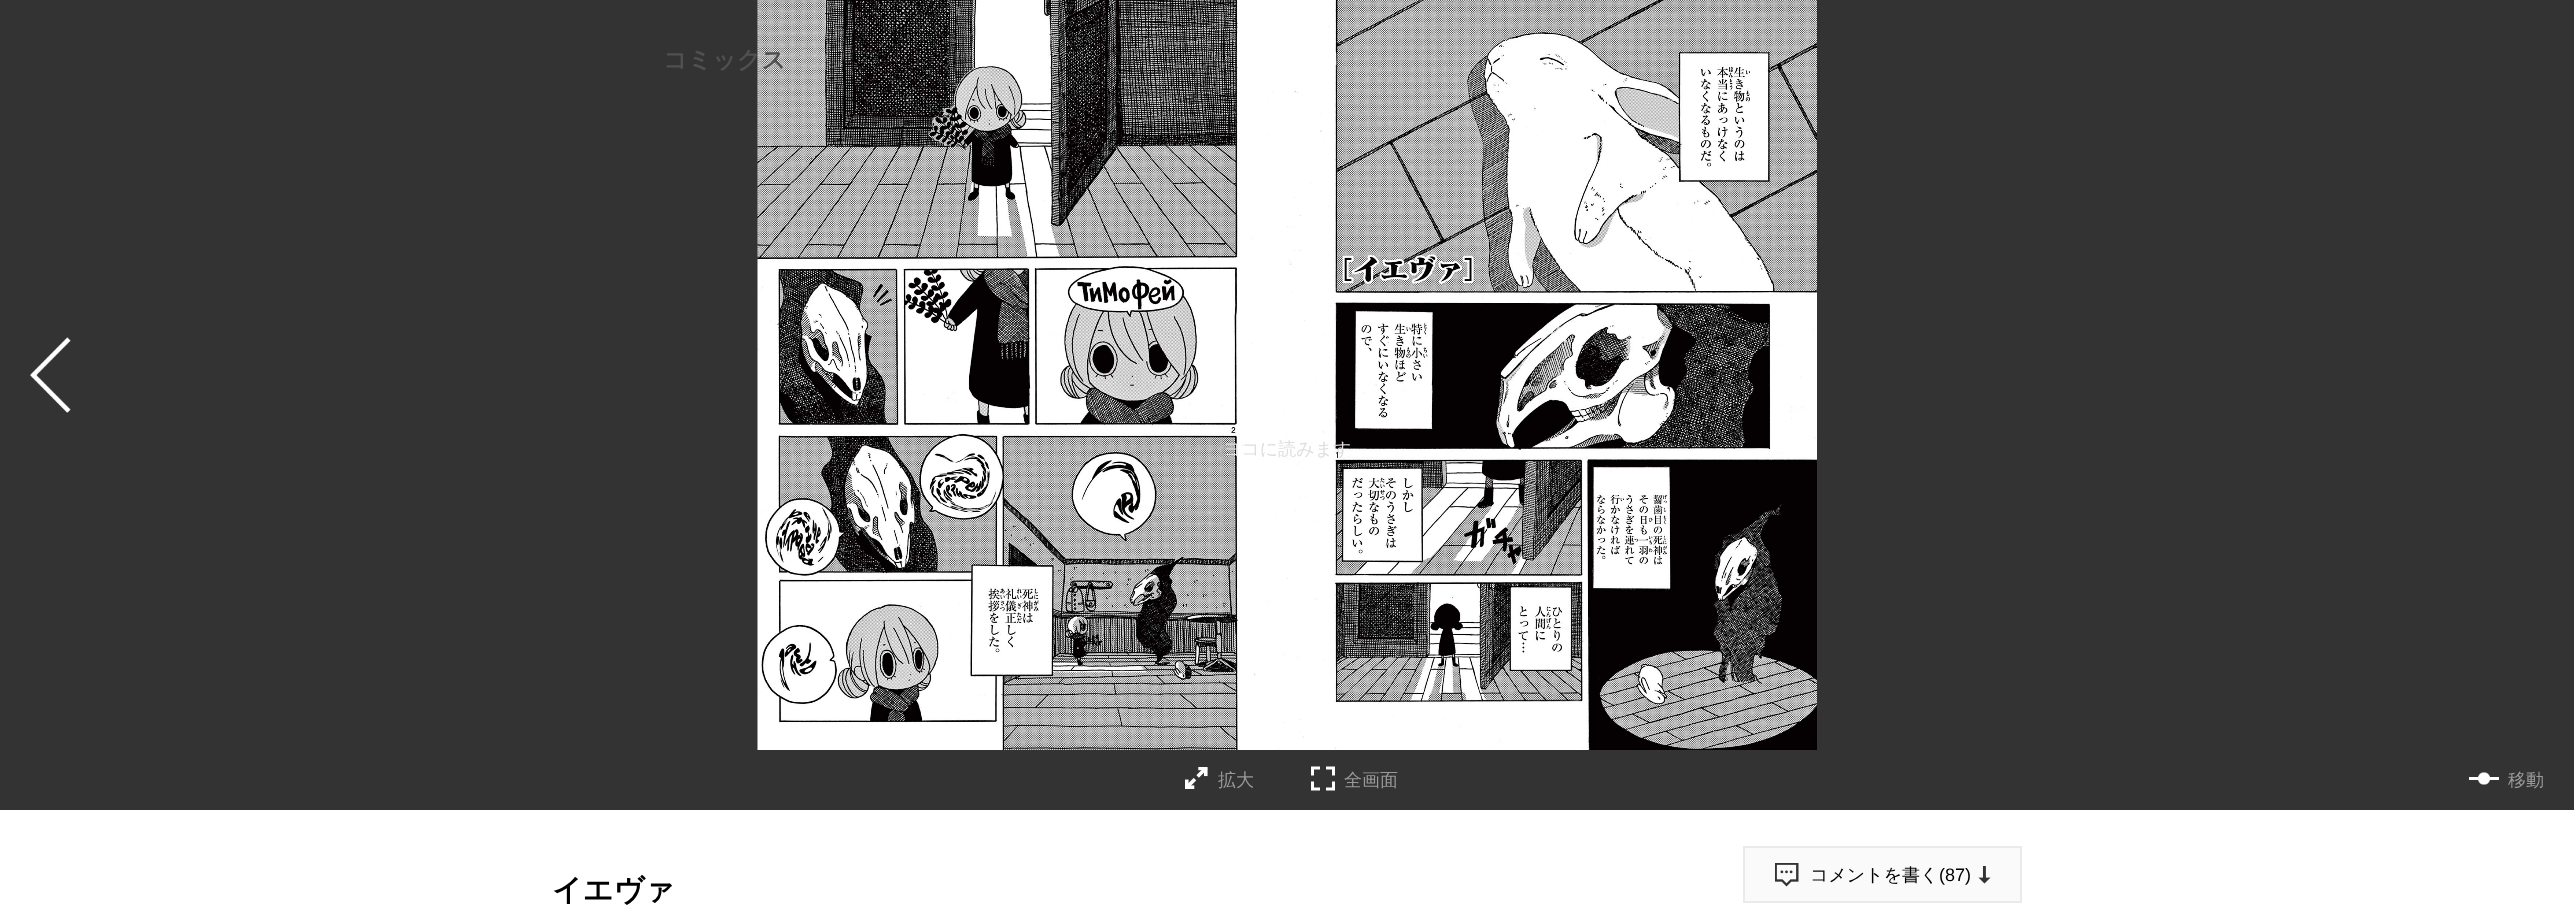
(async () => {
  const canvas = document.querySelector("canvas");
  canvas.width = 2574;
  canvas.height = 921;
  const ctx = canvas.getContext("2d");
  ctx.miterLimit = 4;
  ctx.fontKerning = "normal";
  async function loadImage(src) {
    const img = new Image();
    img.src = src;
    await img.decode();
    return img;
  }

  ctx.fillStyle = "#ffffff";
  ctx.fillRect(0, 0, 2574, 921);
  ctx.fillStyle = "#333333";
  ctx.fillRect(0, 0, 2574, 810);
  ctx.drawImage(await loadImage("img/1.png"), 30, 337, 41, 76);
  ctx.drawImage(await loadImage("img/2.png"), 757, 0, 530, 750);
  ctx.drawImage(await loadImage("img/3.png"), 1287, 0, 530, 750);
  ctx.drawImage(await loadImage("img/4.png"), 1185, 767, 23, 22);
  ctx.drawImage(await loadImage("img/5.png"), 1311, 766, 24, 25);
  ctx.drawImage(await loadImage("img/6.png"), 2469, 772, 30, 13);
  ctx.fillStyle = "#fafafa";
  ctx.beginPath();
  ctx.rect(1744, 847, 277, 55);
  ctx.fill();
  ctx.strokeStyle = "#eaeaea";
  ctx.lineWidth = 2;
  ctx.stroke();
  ctx.drawImage(await loadImage("img/7.png"), 1775, 863, 24, 24);
  ctx.drawImage(await loadImage("img/8.png"), 1978, 866, 13, 18);
  ctx.font = "bold 24px WenQuanYi Zen Hei";
  ctx.fillStyle = "#505050";
  ctx.fillText("コミックス", 663, 68);
  ctx.font = "500 18px WenQuanYi Zen Hei";
  ctx.fillStyle = "#dfdede";
  ctx.fillText("ヨコに読みます", 1223, 455);
  ctx.fillStyle = "#999999";
  for (const [text, x, y] of [
    ["拡大", 1218, 786],
    ["全画面", 1344, 786],
    ["移動", 2508, 786],
  ]) {
    ctx.fillText(text, x, y);
  }
  ctx.font = "bold 30px WenQuanYi Zen Hei";
  ctx.fillStyle = "#000000";
  ctx.fillText("イエヴァ", 552, 900);
  ctx.font = "500 18px WenQuanYi Zen Hei";
  ctx.fillText("コメントを書く", 1810, 881);
  ctx.font = "18px Liberation Sans";
  ctx.fillText("(87)", 1939, 881);
})();
